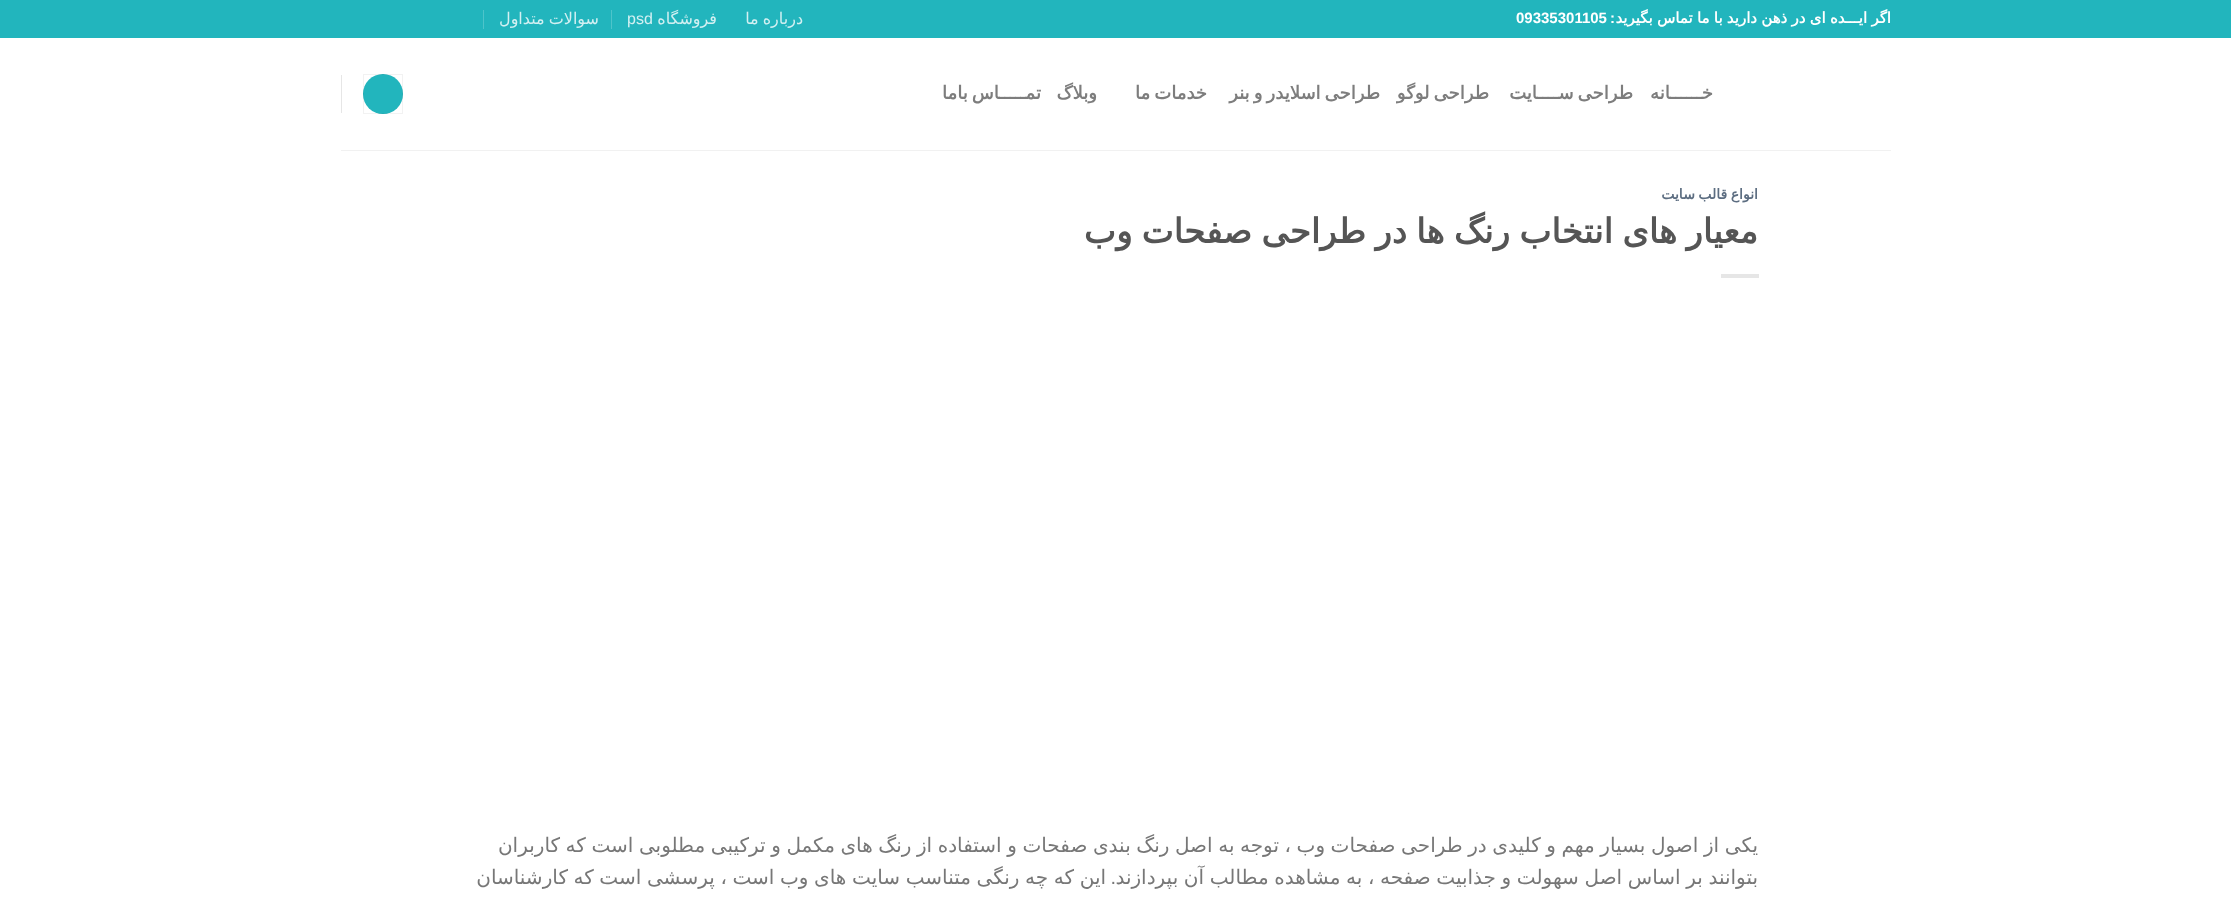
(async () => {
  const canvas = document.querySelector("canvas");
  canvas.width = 2231;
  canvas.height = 905;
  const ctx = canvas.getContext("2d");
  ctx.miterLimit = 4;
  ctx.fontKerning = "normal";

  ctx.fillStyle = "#ffffff";
  ctx.fillRect(0, 0, 2231, 905);
  for (const [x, y, w, h, color] of [
    [0, 0, 2231, 38, "#22b5bd"],
    [611, 10, 1, 19, "#4ec4ca"],
    [483, 10, 1, 19, "#4ec4ca"],
  ]) {
    ctx.fillStyle = color;
    ctx.fillRect(x, y, w, h);
  }
  ctx.fillStyle = "#22b5bd";
  ctx.beginPath();
  ctx.arc(383, 94, 20, 0, Math.PI * 2);
  ctx.fill();
  ctx.strokeStyle = "rgba(0, 0, 0, 0.05)";
  ctx.strokeRect(363.5, 74.5, 39, 39);
  for (const [x, y, w, h, color] of [
    [341, 75, 1, 38, "#e6e6e6"],
    [341, 150, 1550, 1, "#f1f1f1"],
    [1721, 274, 38, 4, "#e6e6e6"],
  ]) {
    ctx.fillStyle = color;
    ctx.fillRect(x, y, w, h);
  }
  ctx.wordSpacing = "-0.5px";
  ctx.direction = "rtl";
  ctx.font = "bold 15px DejaVu Sans";
  ctx.fillStyle = "#ffffff";
  ctx.fillText("اگر ایـــده ای در ذهن دارید با ما تماس بگیرید", 1891, 23);
  ctx.wordSpacing = "0px";
  ctx.font = "bold 15px Liberation Sans";
  ctx.fillText(":", 1615, 23);
  ctx.direction = "ltr";
  ctx.fillText("09335301105", 1516, 23);
  ctx.wordSpacing = "-1px";
  ctx.direction = "rtl";
  ctx.font = "16px DejaVu Sans";
  ctx.fillStyle = "#d3f0f2";
  ctx.fillText("درباره ما", 803, 24);
  ctx.wordSpacing = "0px";
  ctx.fillText("فروشگاه", 717, 24);
  ctx.direction = "ltr";
  ctx.font = "16px Liberation Sans";
  ctx.fillText("psd", 627, 24);
  ctx.wordSpacing = "-1px";
  ctx.direction = "rtl";
  ctx.font = "16px DejaVu Sans";
  ctx.fillText("سوالات متداول", 599, 24);
  ctx.letterSpacing = "0.4px";
  ctx.wordSpacing = "0px";
  ctx.font = "bold 18px DejaVu Sans";
  ctx.fillStyle = "#7d7d7d";
  ctx.fillText("خــــــانه", 1713, 99);
  ctx.wordSpacing = "-2px";
  for (const [text, x, y] of [
    ["طراحی ســــایت", 1633, 99],
    ["طراحی لوگو", 1489, 99],
    ["طراحی اسلایدر و بنر", 1380, 99],
    ["خدمات ما", 1207, 99],
  ]) {
    ctx.fillText(text, x, y);
  }
  ctx.wordSpacing = "0px";
  ctx.fillText("وبلاگ", 1097, 99);
  ctx.wordSpacing = "-2px";
  ctx.fillText("تمـــــاس باما", 1041, 99);
  ctx.letterSpacing = "0px";
  ctx.wordSpacing = "-1px";
  ctx.font = "bold 14px DejaVu Sans";
  ctx.fillStyle = "#5c6d81";
  ctx.fillText("انواع قالب سایت", 1758, 199);
  ctx.wordSpacing = "-1.5px";
  ctx.font = "bold 34px DejaVu Sans";
  ctx.fillStyle = "#555555";
  ctx.fillText("معیار های انتخاب", 1758, 243);
  ctx.fillText("رنگ ها در طراحی صفحات وب", 1510, 243);
  ctx.wordSpacing = "-0.8px";
  ctx.font = "20px DejaVu Sans";
  ctx.fillStyle = "#777777";
  ctx.fillText("یکی از اصول بسیار مهم و کلیدی در طراحی صفحات وب ، توجه به اصل رنگ بندی صفحات و استفاده از رنگ های مکمل و ترکیبی مطلوبی است که کاربران", 1758, 852);
  ctx.wordSpacing = "-0.75px";
  ctx.fillText("بتوانند بر اساس اصل سهولت و جذابیت صفحه ، به مشاهده مطالب آن بپردازند", 1758, 884);
  ctx.wordSpacing = "0px";
  ctx.font = "20px Liberation Sans";
  ctx.fillText(".", 1116, 884);
  ctx.wordSpacing = "-0.75px";
  ctx.font = "20px DejaVu Sans";
  ctx.fillText("این که چه رنگی متناسب سایت های وب است ، پرسشی است که کارشناسان", 1106, 884);
})();
